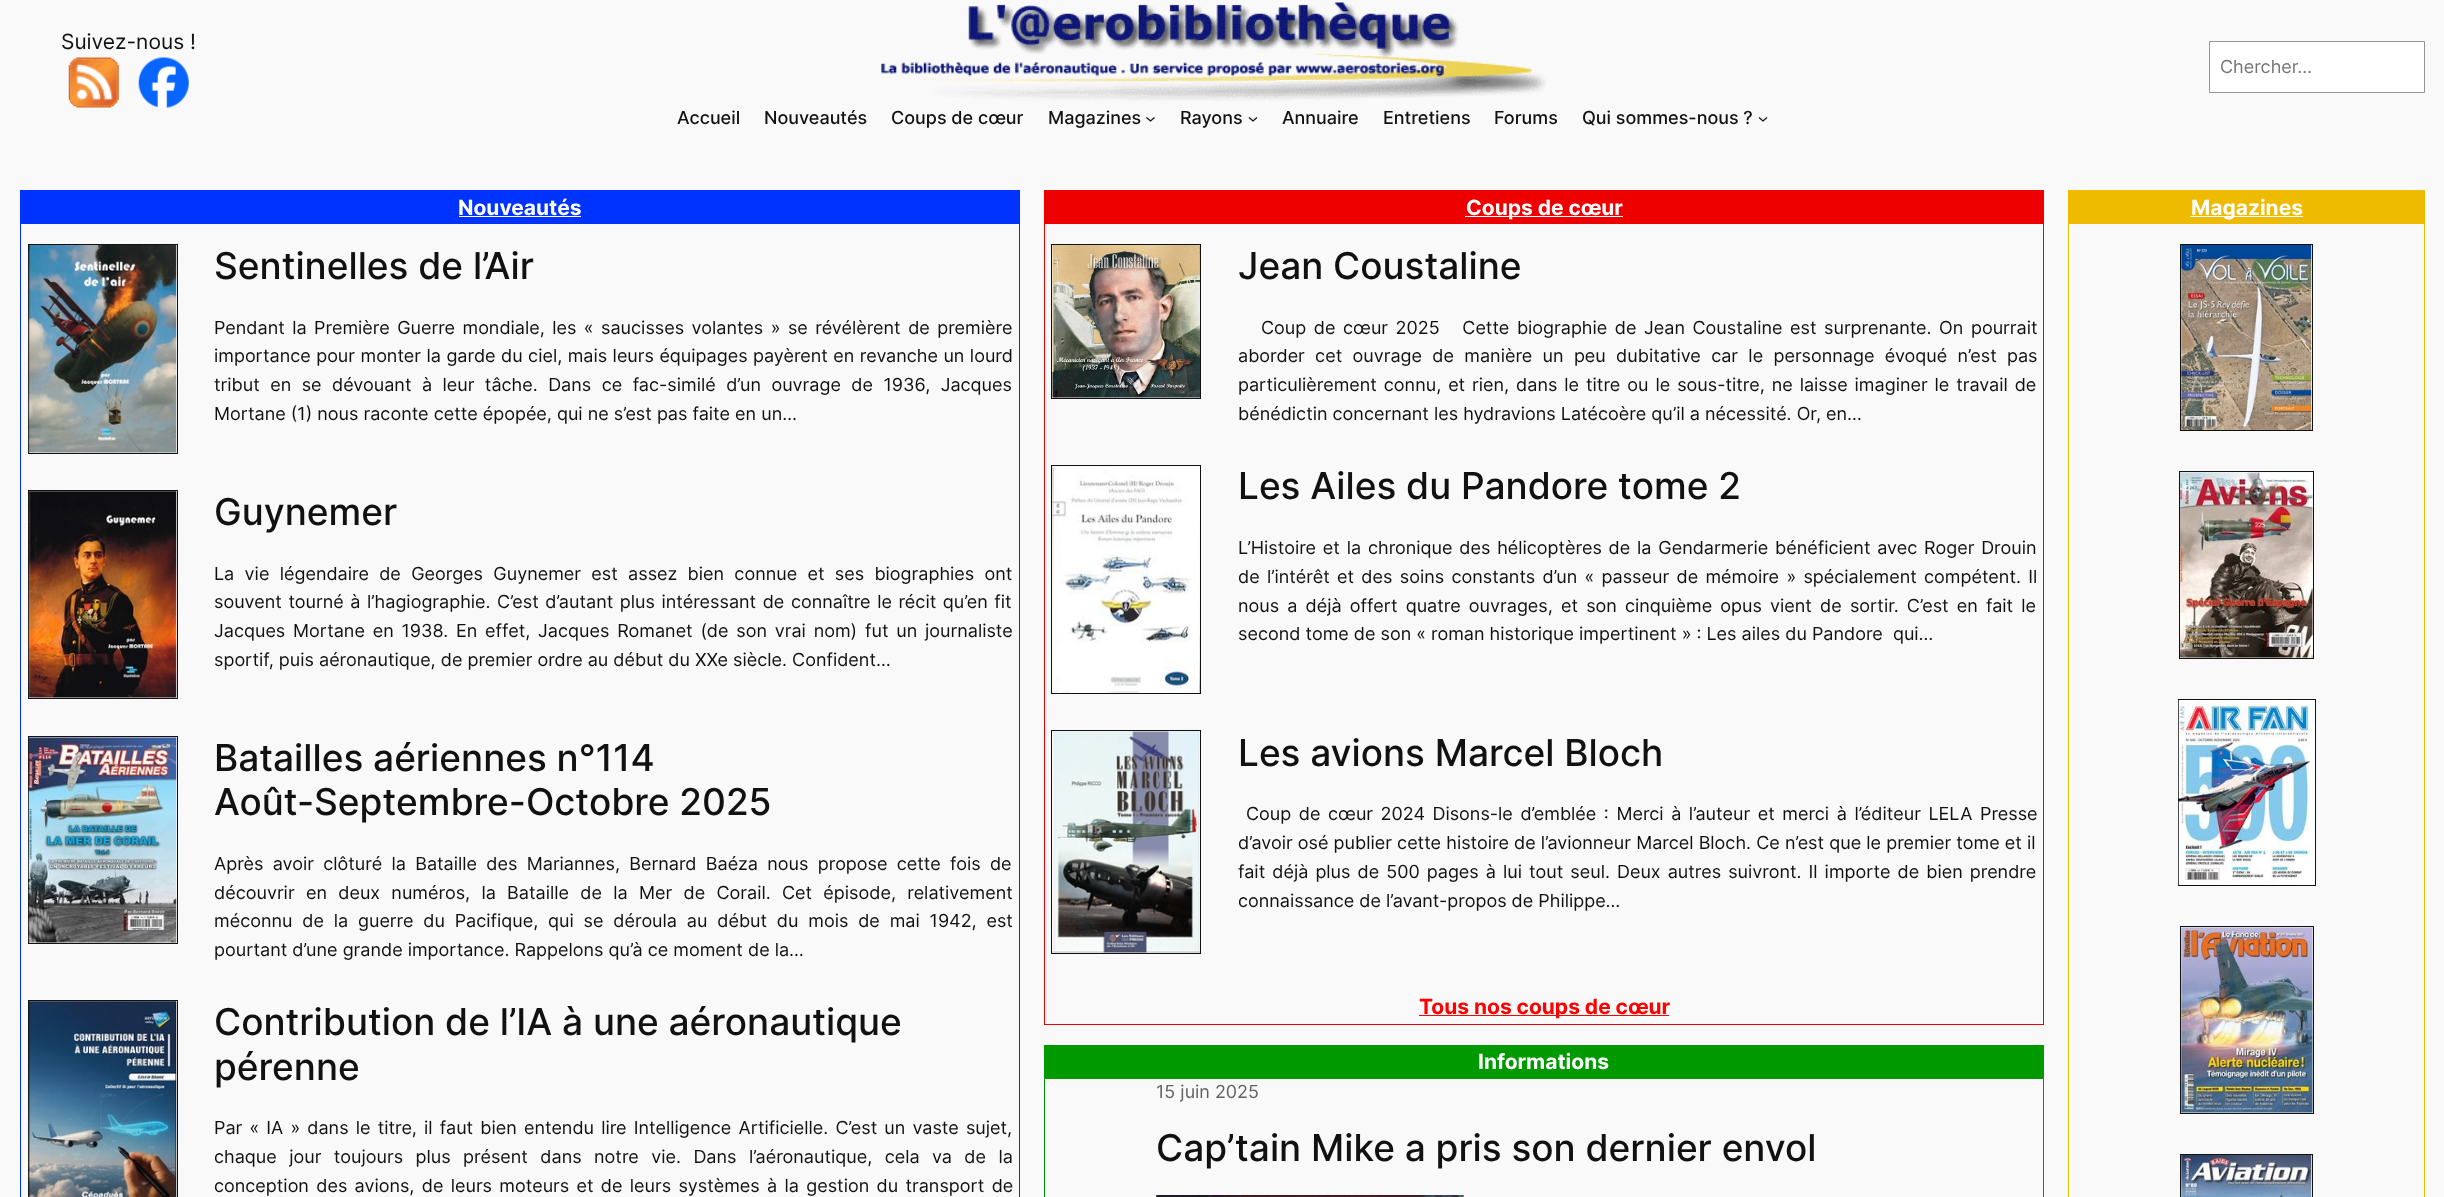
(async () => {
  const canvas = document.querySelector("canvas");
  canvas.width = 2444;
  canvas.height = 1197;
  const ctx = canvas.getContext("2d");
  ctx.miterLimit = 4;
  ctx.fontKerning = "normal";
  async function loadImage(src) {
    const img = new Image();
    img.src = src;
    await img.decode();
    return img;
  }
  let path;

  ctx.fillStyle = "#f9f9f9";
  ctx.fillRect(0, 0, 2444, 1197);
  ctx.drawImage(await loadImage("img/1.png"), 68, 57, 51, 51);
  ctx.drawImage(await loadImage("img/2.png"), 138, 57, 51, 51);
  ctx.fillStyle = "#ffffff";
  ctx.beginPath();
  ctx.rect(2209.5, 41.5, 215, 51);
  ctx.fill();
  ctx.strokeStyle = "#949494";
  ctx.stroke();
  ctx.drawImage(await loadImage("img/3.png"), 881, 2, 665, 100);
  path = new Path2D("M1146.5 117.5L1150.5 121L1154.5 117.5");
  ctx.strokeStyle = "#111111";
  ctx.lineWidth = 1.3;
  ctx.stroke(path);
  path = new Path2D("M1249 117.5L1253 121L1257 117.5");
  ctx.stroke(path);
  path = new Path2D("M1759 117.5L1763 121L1767 117.5");
  ctx.stroke(path);
  ctx.strokeStyle = "#0033ff";
  ctx.lineWidth = 1;
  ctx.strokeRect(20.5, 190.5, 999, 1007);
  ctx.fillStyle = "#0033ff";
  ctx.fillRect(21, 191, 998, 33);
  ctx.fillStyle = "#ffffff";
  ctx.fillRect(459, 216, 122, 1);
  ctx.strokeStyle = "#111111";
  ctx.strokeRect(28.5, 244.5, 149, 209);
  ctx.drawImage(await loadImage("img/4.png"), 28, 245, 149, 208);
  ctx.strokeRect(28.5, 490.5, 149, 208);
  ctx.drawImage(await loadImage("img/5.png"), 28, 491, 149, 207);
  ctx.strokeRect(28.5, 736.5, 149, 207);
  ctx.drawImage(await loadImage("img/6.png"), 28, 737, 149, 206);
  ctx.strokeRect(28.5, 1000.5, 149, 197);
  ctx.drawImage(await loadImage("img/7.png"), 28, 1001, 149, 196);
  ctx.strokeStyle = "#ee0000";
  ctx.strokeRect(1044.5, 190.5, 999, 834);
  ctx.fillStyle = "#ee0000";
  ctx.fillRect(1045, 191, 998, 33);
  ctx.fillStyle = "#ffffff";
  ctx.fillRect(1465, 216, 158, 1);
  ctx.strokeStyle = "#111111";
  ctx.strokeRect(1051.5, 244.5, 149, 154);
  ctx.drawImage(await loadImage("img/8.png"), 1052, 245, 148, 153);
  ctx.strokeRect(1051.5, 465.5, 149, 228);
  ctx.drawImage(await loadImage("img/9.png"), 1052, 466, 148, 227);
  ctx.strokeRect(1051.5, 730.5, 149, 223);
  ctx.drawImage(await loadImage("img/10.png"), 1052, 731, 148, 222);
  ctx.fillStyle = "#ff0000";
  ctx.fillRect(1419, 1015, 250, 1);
  ctx.strokeStyle = "#009900";
  ctx.strokeRect(1044.5, 1045.5, 999, 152);
  ctx.fillStyle = "#009900";
  ctx.fillRect(1045, 1046, 998, 33);
  ctx.drawImage(await loadImage("img/11.png"), 1156, 1195, 308, 2);
  ctx.strokeStyle = "#eebb00";
  ctx.strokeRect(2068.5, 190.5, 356, 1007);
  ctx.fillStyle = "#eebb00";
  ctx.fillRect(2069, 191, 355, 33);
  ctx.fillStyle = "#ffffff";
  ctx.fillRect(2190, 216, 113, 1);
  ctx.strokeStyle = "#111111";
  ctx.strokeRect(2180.5, 244.5, 132, 186);
  ctx.drawImage(await loadImage("img/12.png"), 2181, 245, 131, 185);
  ctx.strokeRect(2179.5, 471.5, 134, 187);
  ctx.drawImage(await loadImage("img/13.png"), 2180, 472, 133, 186);
  ctx.strokeRect(2178.5, 699.5, 137, 186);
  ctx.drawImage(await loadImage("img/14.png"), 2178, 700, 137, 185);
  ctx.strokeRect(2180.5, 926.5, 133, 187);
  ctx.drawImage(await loadImage("img/15.png"), 2181, 927, 132, 186);
  ctx.strokeRect(2180.5, 1154.5, 132, 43);
  ctx.drawImage(await loadImage("img/16.png"), 2181, 1155, 131, 42);
  ctx.font = "21px Inter";
  ctx.fillStyle = "#111111";
  ctx.fillText("Suivez-nous !", 61, 49);
  ctx.font = "18px Inter";
  ctx.fillStyle = "#757575";
  ctx.fillText("Chercher…", 2220, 73);
  ctx.font = "500 18px Inter";
  ctx.fillStyle = "#111111";
  for (const [text, x, y] of [
    ["Accueil", 677, 124],
    ["Nouveautés", 764, 124],
    ["Coups de cœur", 891, 124],
    ["Magazines", 1048, 124],
    ["Rayons", 1180, 124],
    ["Annuaire", 1282, 124],
    ["Entretiens", 1383, 124],
    ["Forums", 1494, 124],
    ["Qui sommes-nous ?", 1582, 124],
  ]) {
    ctx.fillText(text, x, y);
  }
  ctx.font = "bold 21px Inter";
  ctx.fillStyle = "#ffffff";
  ctx.fillText("Nouveautés", 458, 215);
  ctx.font = "500 37px Inter";
  ctx.fillStyle = "#111111";
  ctx.fillText("Sentinelles de l’Air", 214, 279);
  ctx.wordSpacing = "2.4px";
  ctx.font = "18px Inter";
  ctx.fillText("Pendant la Première Guerre mondiale, les « saucisses volantes » se révélèrent de première", 214, 334);
  ctx.wordSpacing = "0.4px";
  ctx.fillText("importance pour monter la garde du ciel, mais leurs équipages payèrent en revanche un lourd", 214, 362);
  ctx.wordSpacing = "5.4px";
  ctx.fillText("tribut en se dévouant à leur tâche. Dans ce fac-similé d’un ouvrage de 1936, Jacques", 214, 391);
  ctx.wordSpacing = "0px";
  ctx.fillText("Mortane (1) nous raconte cette épopée, qui ne s’est pas faite en un…", 214, 420);
  ctx.font = "500 37px Inter";
  ctx.fillText("Guynemer", 214, 525);
  ctx.wordSpacing = "5.25px";
  ctx.font = "18px Inter";
  ctx.fillText("La vie légendaire de Georges Guynemer est assez bien connue et ses biographies ont", 214, 580);
  ctx.wordSpacing = "1.5px";
  ctx.fillText("souvent tourné à l’hagiographie. C’est d’autant plus intéressant de connaître le récit qu’en fit", 214, 608);
  ctx.wordSpacing = "2.75px";
  ctx.fillText("Jacques Mortane en 1938. En effet, Jacques Romanet (de son vrai nom) fut un journaliste", 214, 637);
  ctx.wordSpacing = "0px";
  ctx.fillText("sportif, puis aéronautique, de premier ordre au début du XXe siècle. Confident…", 214, 666);
  ctx.font = "500 37px Inter";
  ctx.fillText("Batailles aériennes n°114", 214, 771);
  ctx.fillText("Août-Septembre-Octobre 2025", 214, 815);
  ctx.wordSpacing = "4.25px";
  ctx.font = "18px Inter";
  ctx.fillText("Après avoir clôturé la Bataille des Mariannes, Bernard Baéza nous propose cette fois de", 214, 870);
  ctx.wordSpacing = "6.25px";
  ctx.fillText("découvrir en deux numéros, la Bataille de la Mer de Corail. Cet épisode, relativement", 214, 899);
  ctx.wordSpacing = "4.75px";
  ctx.fillText("méconnu de la guerre du Pacifique, qui se déroula au début du mois de mai 1942, est", 214, 927);
  ctx.wordSpacing = "0px";
  ctx.fillText("pourtant d’une grande importance. Rappelons qu’à ce moment de la…", 214, 956);
  ctx.font = "500 37px Inter";
  ctx.fillText("Contribution de l’IA à une aéronautique", 214, 1035);
  ctx.fillText("pérenne", 214, 1080);
  ctx.wordSpacing = "2.1px";
  ctx.font = "18px Inter";
  ctx.fillText("Par « IA » dans le titre, il faut bien entendu lire Intelligence Artificielle. C’est un vaste sujet,", 214, 1134);
  ctx.wordSpacing = "7.4px";
  ctx.fillText("chaque jour toujours plus présent dans notre vie. Dans l’aéronautique, cela va de la", 214, 1163);
  ctx.wordSpacing = "2.25px";
  ctx.fillText("conception des avions, de leurs moteurs et de leurs systèmes à la gestion du transport de", 214, 1192);
  ctx.wordSpacing = "0px";
  ctx.font = "bold 21px Inter";
  ctx.fillStyle = "#ffffff";
  ctx.fillText("Coups de cœur", 1466, 215);
  ctx.font = "500 37px Inter";
  ctx.fillStyle = "#111111";
  ctx.fillText("Jean Coustaline", 1238, 279);
  ctx.wordSpacing = "2.5px";
  ctx.font = "18px Inter";
  ctx.fillText("Coup de cœur 2025   Cette biographie de Jean Coustaline est surprenante. On pourrait", 1261, 334);
  ctx.wordSpacing = "5.25px";
  ctx.fillText("aborder cet ouvrage de manière un peu dubitative car le personnage évoqué n’est pas", 1238, 362);
  ctx.wordSpacing = "1.9px";
  ctx.fillText("particulièrement connu, et rien, dans le titre ou le sous-titre, ne laisse imaginer le travail de", 1238, 391);
  ctx.wordSpacing = "0px";
  ctx.fillText("bénédictin concernant les hydravions Latécoère qu’il a nécessité. Or, en…", 1238, 420);
  ctx.font = "500 37px Inter";
  ctx.fillText("Les Ailes du Pandore tome 2", 1238, 499);
  ctx.wordSpacing = "1.75px";
  ctx.font = "18px Inter";
  ctx.fillText("L’Histoire et la chronique des hélicoptères de la Gendarmerie bénéficient avec Roger Drouin", 1238, 554);
  ctx.wordSpacing = "2.25px";
  ctx.fillText("de l’intérêt et des soins constants d’un « passeur de mémoire » spécialement compétent. Il", 1238, 583);
  ctx.wordSpacing = "3.1px";
  ctx.fillText("nous a déjà offert quatre ouvrages, et son cinquième opus vient de sortir. C’est en fait le", 1238, 612);
  ctx.wordSpacing = "0px";
  ctx.fillText("second tome de son « roman historique impertinent » : Les ailes du Pandore  qui…", 1238, 640);
  ctx.font = "500 37px Inter";
  ctx.fillText("Les avions Marcel Bloch", 1238, 766);
  ctx.wordSpacing = "2.5px";
  ctx.font = "18px Inter";
  ctx.fillText("Coup de cœur 2024 Disons-le d’emblée : Merci à l’auteur et merci à l’éditeur LELA Presse", 1246, 820);
  ctx.wordSpacing = "0.1px";
  ctx.fillText("d’avoir osé publier cette histoire de l’avionneur Marcel Bloch. Ce n’est que le premier tome et il", 1238, 849);
  ctx.wordSpacing = "2px";
  ctx.fillText("fait déjà plus de 500 pages à lui tout seul. Deux autres suivront. Il importe de bien prendre", 1238, 878);
  ctx.wordSpacing = "0px";
  ctx.fillText("connaissance de l’avant-propos de Philippe…", 1238, 907);
  ctx.font = "bold 21px Inter";
  ctx.fillStyle = "#ff0000";
  ctx.fillText("Tous nos coups de cœur", 1419, 1014);
  ctx.fillStyle = "#ffffff";
  ctx.fillText("Informations", 1478, 1069);
  ctx.font = "18px Inter";
  ctx.fillStyle = "#636363";
  ctx.fillText("15 juin 2025", 1156, 1098);
  ctx.font = "500 37px Inter";
  ctx.fillStyle = "#111111";
  ctx.fillText("Cap’tain Mike a pris son dernier envol", 1156, 1161);
  ctx.font = "bold 21px Inter";
  ctx.fillStyle = "#ffffff";
  ctx.fillText("Magazines", 2191, 215);
})();
